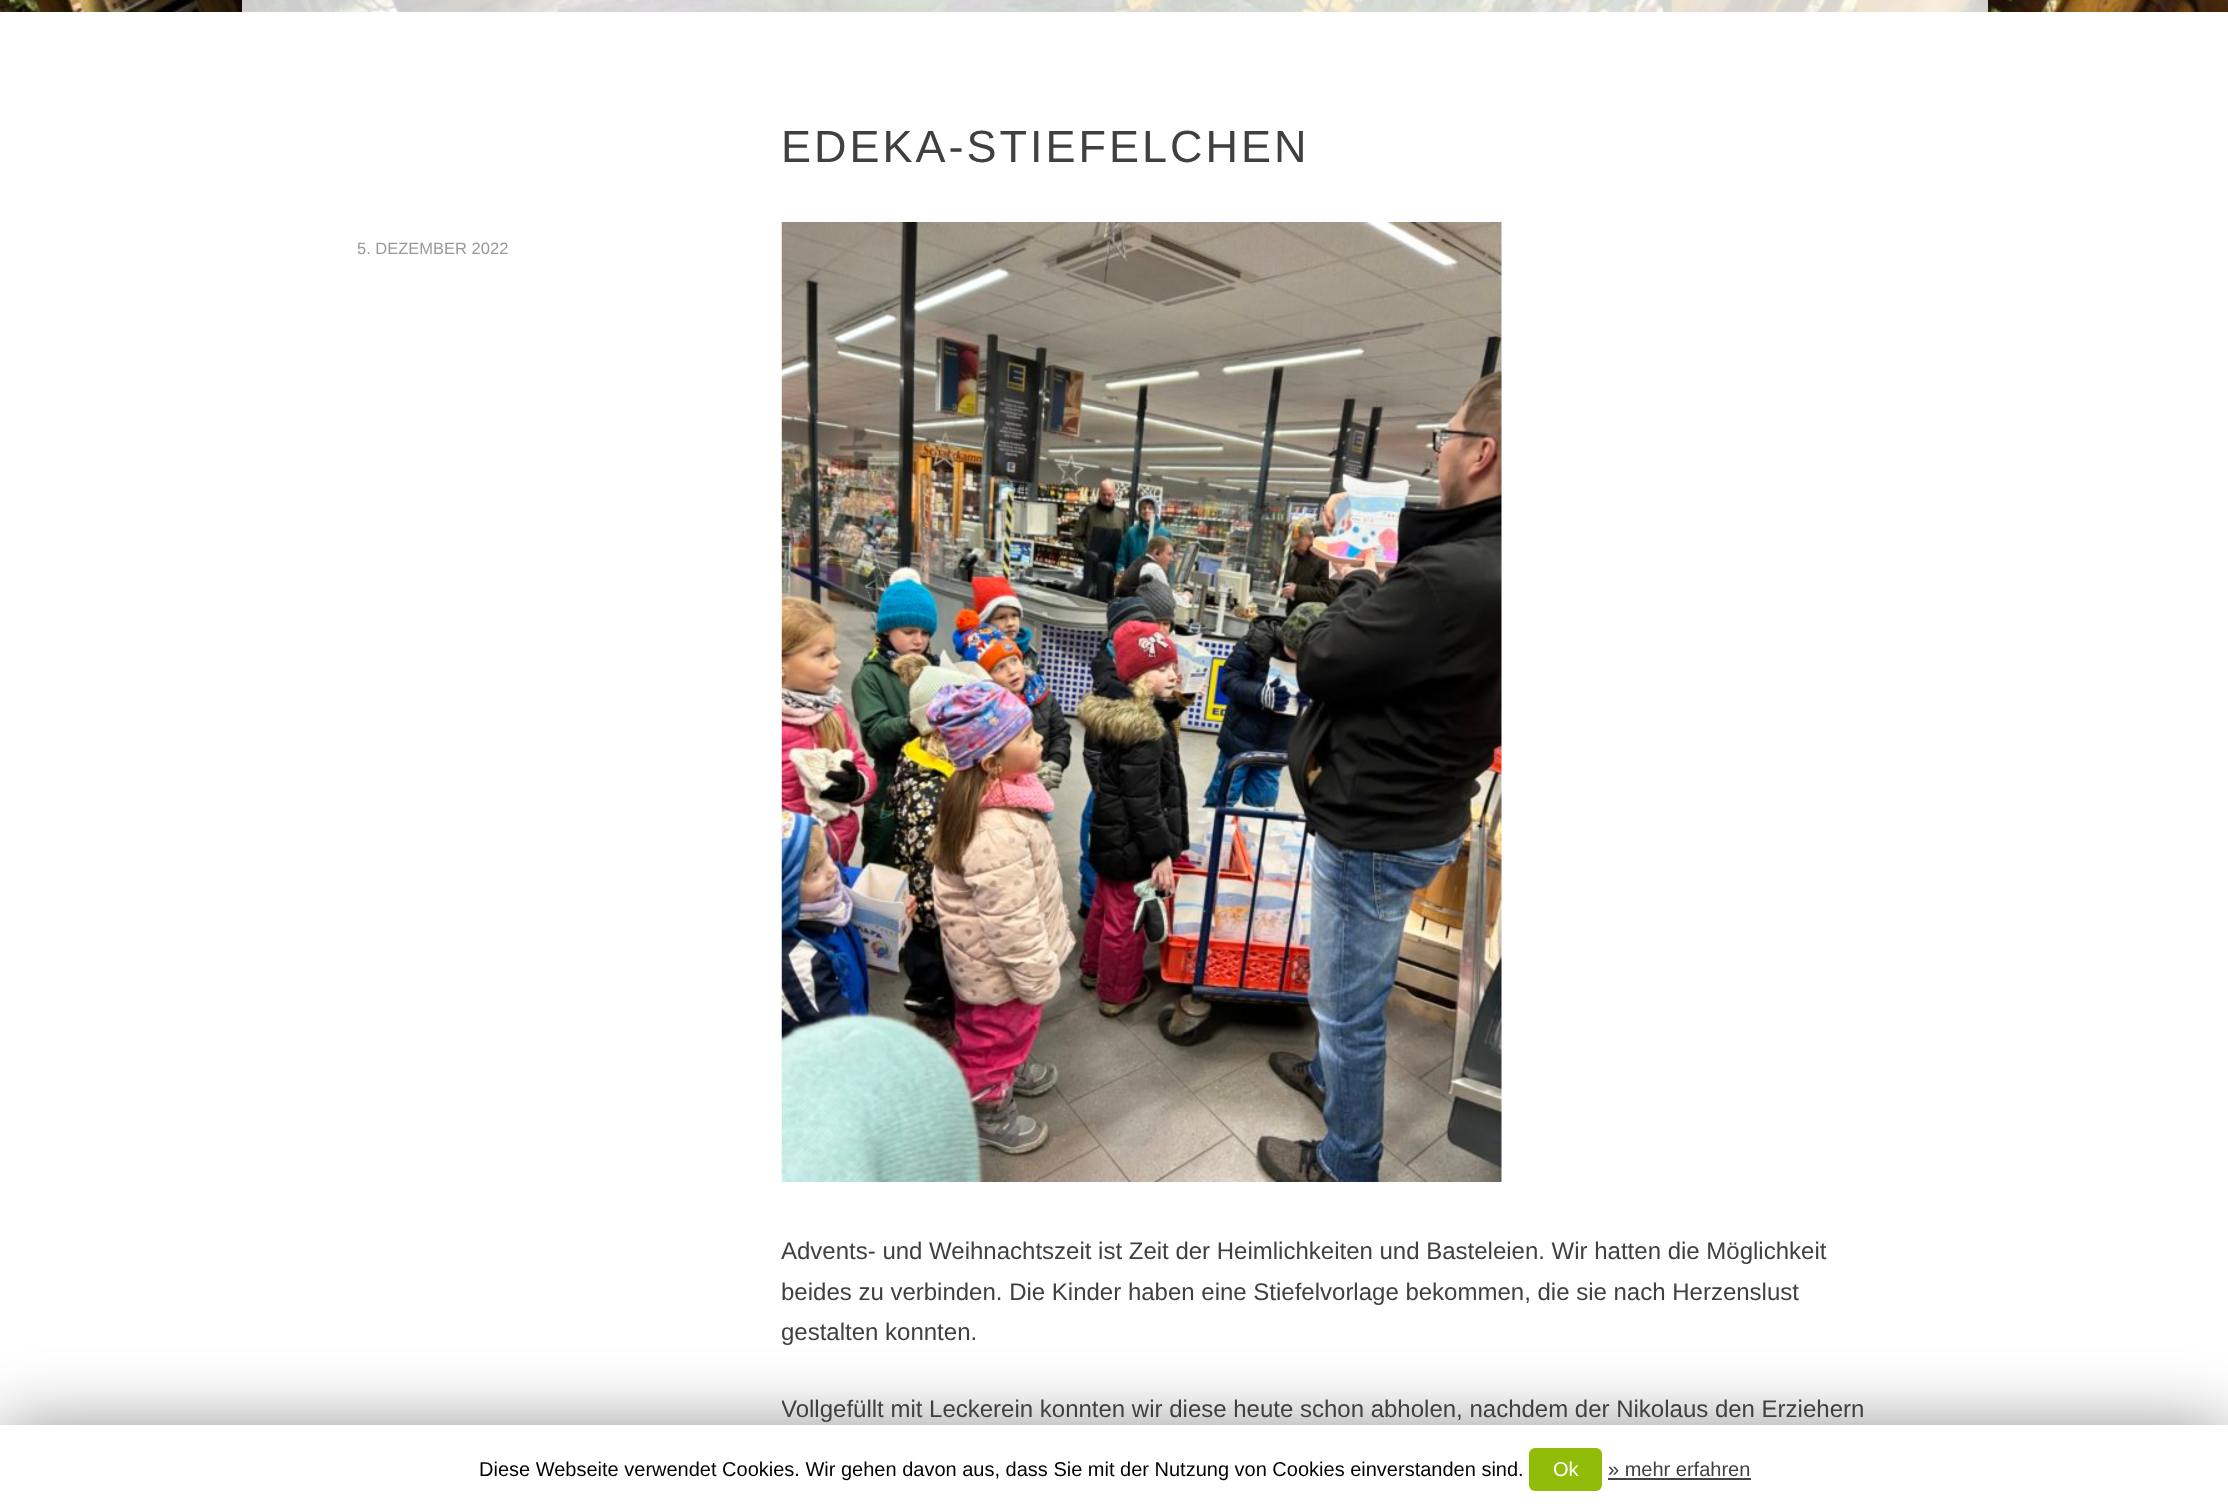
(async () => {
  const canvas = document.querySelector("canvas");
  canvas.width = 2228;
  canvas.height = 1506;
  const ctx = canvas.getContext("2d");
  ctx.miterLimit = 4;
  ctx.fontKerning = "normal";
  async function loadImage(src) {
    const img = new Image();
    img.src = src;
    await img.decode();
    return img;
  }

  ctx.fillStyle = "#ffffff";
  ctx.fillRect(0, 0, 2228, 1506);
  ctx.drawImage(await loadImage("img/1.png"), 0, 0, 2228, 12);
  ctx.fillStyle = "rgba(255, 255, 255, 0.8)";
  ctx.fillRect(242, 0, 1746, 12);
  ctx.drawImage(await loadImage("img/2.png"), 781, 222, 721, 960);
  ctx.fillStyle = "rgba(0, 0, 0, 0.5)";
  ctx.filter = "blur(37.5px)";
  ctx.beginPath();
  ctx.rect(0, 1433, 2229, 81);
  ctx.fill();
  ctx.filter = "none";
  ctx.fillStyle = "#ffffff";
  ctx.fillRect(0, 1425, 2228, 81);
  ctx.fillStyle = "#91bd09";
  ctx.beginPath();
  ctx.roundRect(1529, 1448, 73, 43, 6);
  ctx.fill();
  ctx.fillStyle = "#444444";
  ctx.fillRect(1608, 1478, 143, 2);
  ctx.letterSpacing = "3px";
  ctx.font = "45px Liberation Sans";
  ctx.fillStyle = "#404040";
  ctx.fillText("EDEKA-STIEFELCHEN", 781, 162);
  ctx.letterSpacing = "0px";
  ctx.font = "16.5px Liberation Sans";
  ctx.fillStyle = "#999999";
  ctx.fillText("5. DEZEMBER 2022", 357, 254);
  ctx.font = "24px Liberation Sans";
  ctx.fillStyle = "#404040";
  for (const [text, x, y] of [
    ["Advents- und Weihnachtszeit ist Zeit der Heimlichkeiten und Basteleien. Wir hatten die Möglichkeit", 781, 1259],
    ["beides zu verbinden. Die Kinder haben eine Stiefelvorlage bekommen, die sie nach Herzenslust", 781, 1300],
    ["gestalten konnten.", 781, 1340],
  ]) {
    ctx.fillText(text, x, y);
  }
  ctx.save();
  ctx.beginPath();
  ctx.rect(782, 222, 1090, 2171);
  ctx.clip();
  ctx.fillText("Vollgefüllt mit Leckerein konnten wir diese heute schon abholen, nachdem der Nikolaus den Erziehern", 781, 1417);
  ctx.restore();
  ctx.font = "20px Liberation Sans";
  ctx.fillStyle = "#000000";
  ctx.fillText("Diese Webseite verwendet Cookies. Wir gehen davon aus, dass Sie mit der Nutzung von Cookies einverstanden sind.", 479, 1476);
  ctx.fillStyle = "#ffffff";
  ctx.fillText("Ok", 1553, 1476);
  ctx.fillStyle = "#404040";
  ctx.fillText("» mehr erfahren", 1608, 1476);
})();
